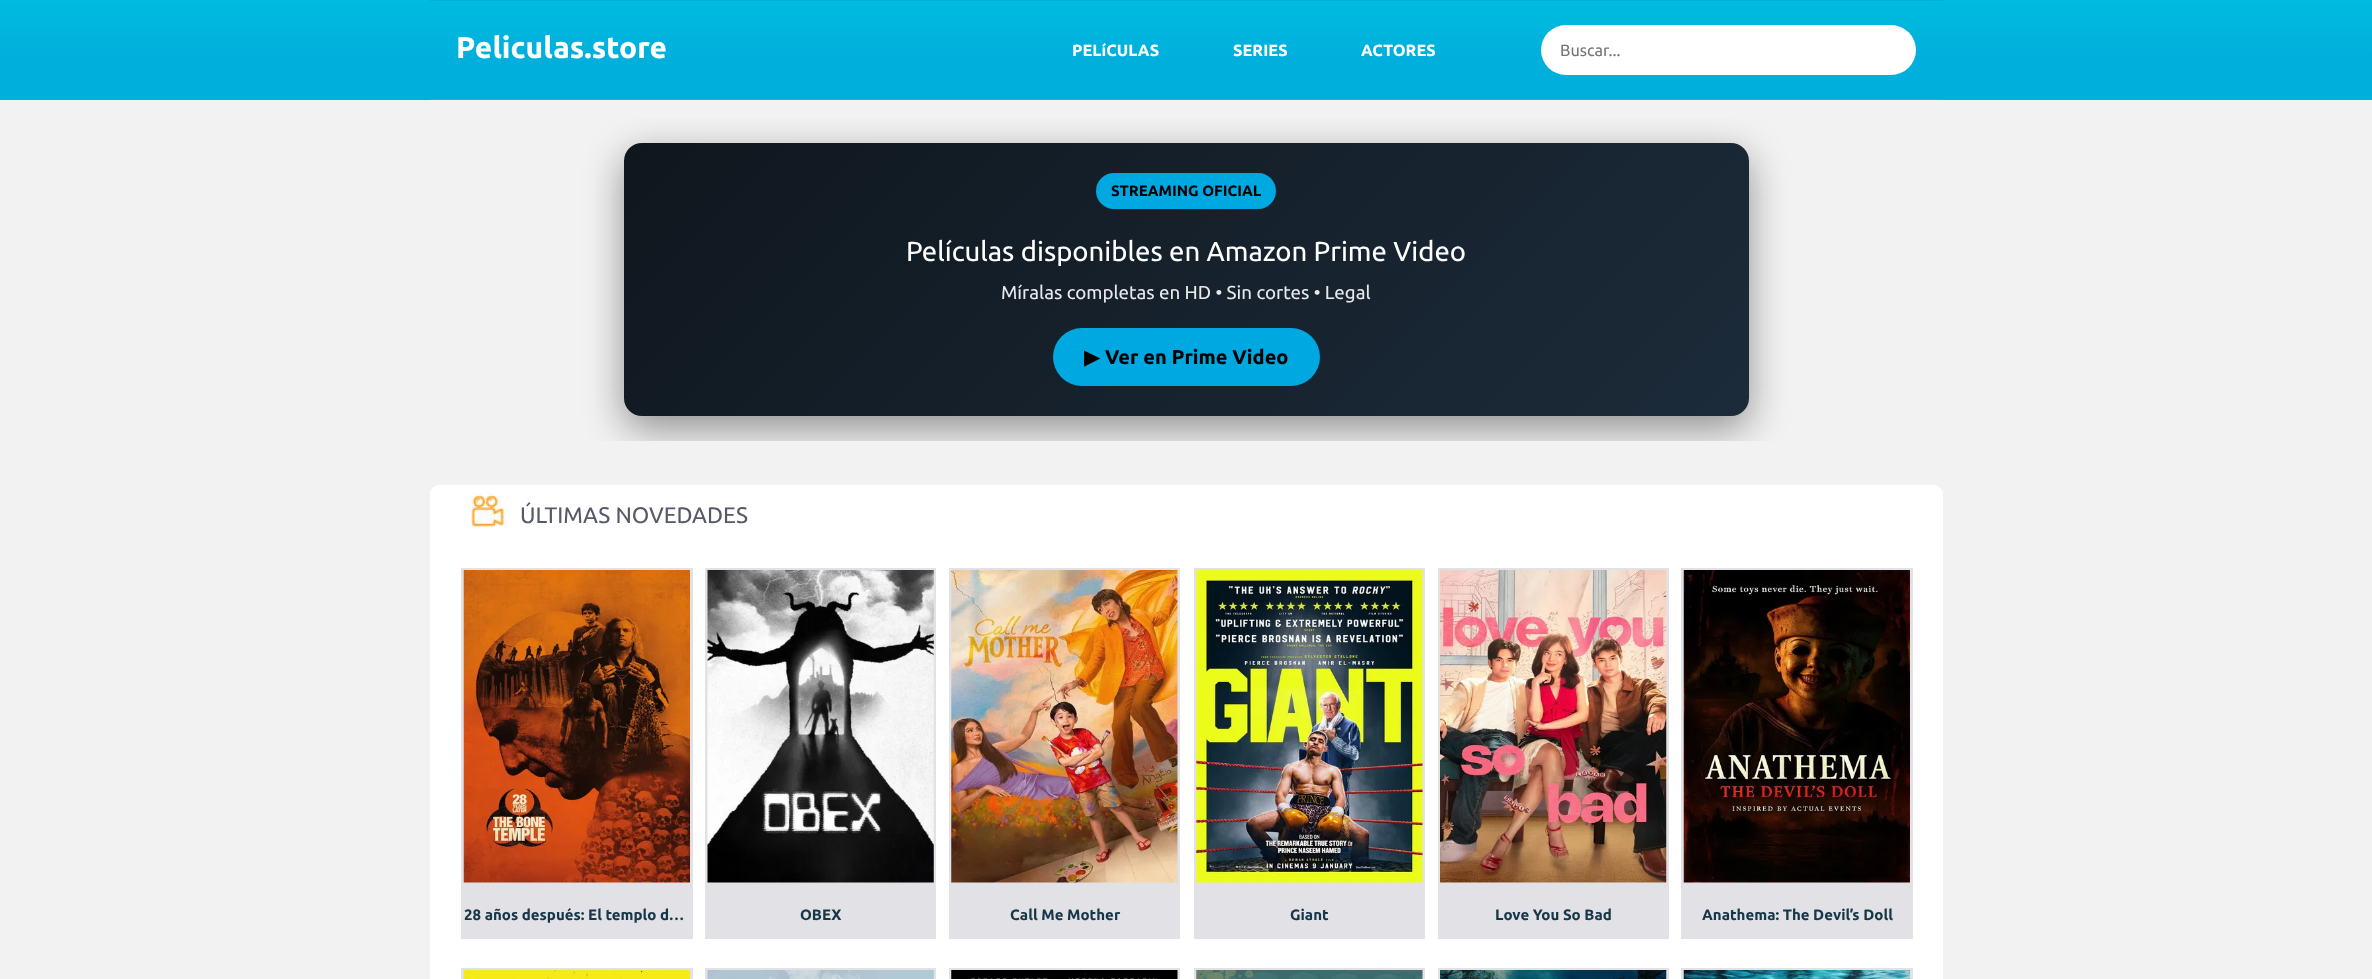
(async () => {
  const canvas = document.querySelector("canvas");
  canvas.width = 2372;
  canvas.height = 979;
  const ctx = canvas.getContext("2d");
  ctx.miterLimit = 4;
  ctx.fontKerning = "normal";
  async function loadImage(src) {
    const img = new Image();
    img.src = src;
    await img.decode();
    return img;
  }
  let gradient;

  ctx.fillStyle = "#f2f2f3";
  ctx.fillRect(0, 0, 2372, 979);
  ctx.fillStyle = "#ffffff";
  ctx.beginPath();
  ctx.roundRect(430, 485, 1513, 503, 9);
  ctx.fill();
  ctx.save();
  ctx.beginPath();
  ctx.rect(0, 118, 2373, 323);
  ctx.clip();
  ctx.fillStyle = "rgba(0, 0, 0, 0.4)";
  ctx.filter = "blur(19px)";
  ctx.beginPath();
  ctx.roundRect(624, 155, 1125, 274, 18);
  ctx.fill();
  ctx.filter = "none";
  ctx.restore();
  gradient = ctx.createLinearGradient(1186, 0, 1186, 100);
  gradient.addColorStop(0.01, "#00bcdf");
  gradient.addColorStop(0.58, "#00afdc");
  ctx.fillStyle = gradient;
  ctx.fillRect(0, 0, 2372, 100);
  gradient = ctx.createLinearGradient(1186, -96, 1186, 1.3);
  gradient.addColorStop(0.01, "#00bcdf");
  gradient.addColorStop(0.58, "#00afdc");
  ctx.fillStyle = gradient;
  ctx.fillRect(430, 0, 1513, 1);
  gradient = ctx.createLinearGradient(1186, 99, 1186, 196);
  gradient.addColorStop(0.01, "#00bcdf");
  gradient.addColorStop(0.58, "#00afdc");
  ctx.fillStyle = gradient;
  ctx.fillRect(430, 99, 1513, 1);
  ctx.fillStyle = "#ffffff";
  ctx.beginPath();
  ctx.roundRect(1541, 25, 375, 50, 25);
  ctx.fill();
  gradient = ctx.createLinearGradient(837, -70, 1536, 629);
  gradient.addColorStop(0, "#0f171e");
  gradient.addColorStop(1, "#1c2b3a");
  ctx.fillStyle = gradient;
  ctx.beginPath();
  ctx.roundRect(624, 143, 1125, 273, 18);
  ctx.fill();
  ctx.fillStyle = "#00a8e1";
  ctx.beginPath();
  ctx.roundRect(1096, 173, 180, 36, 18);
  ctx.fill();
  ctx.beginPath();
  ctx.roundRect(1053, 328, 267, 58, 29);
  ctx.fill();
  ctx.drawImage(await loadImage("img/1.png"), 471, 491, 37, 36);
  ctx.fillStyle = "#e2e1e6";
  ctx.fillRect(461, 568, 232, 371);
  ctx.drawImage(await loadImage("img/2.png"), 463, 570, 227, 313);
  ctx.fillRect(705, 568, 231, 371);
  ctx.drawImage(await loadImage("img/3.png"), 707, 570, 227, 313);
  ctx.fillRect(949, 568, 231, 371);
  ctx.drawImage(await loadImage("img/4.png"), 951, 570, 227, 313);
  ctx.fillRect(1194, 568, 231, 371);
  ctx.drawImage(await loadImage("img/5.png"), 1196, 570, 227, 313);
  ctx.fillRect(1438, 568, 231, 371);
  ctx.drawImage(await loadImage("img/6.png"), 1440, 570, 227, 313);
  ctx.fillRect(1681, 568, 232, 371);
  ctx.drawImage(await loadImage("img/7.png"), 1683, 570, 227, 313);
  ctx.fillRect(461, 968, 232, 11);
  ctx.drawImage(await loadImage("img/8.png"), 463, 970, 227, 9);
  ctx.fillRect(705, 968, 231, 11);
  ctx.drawImage(await loadImage("img/9.png"), 707, 970, 227, 9);
  ctx.fillRect(949, 968, 231, 11);
  ctx.drawImage(await loadImage("img/10.png"), 951, 970, 227, 9);
  ctx.fillRect(1194, 968, 231, 11);
  ctx.drawImage(await loadImage("img/11.png"), 1196, 970, 227, 9);
  ctx.fillRect(1438, 968, 231, 11);
  ctx.drawImage(await loadImage("img/12.png"), 1440, 970, 227, 9);
  ctx.fillRect(1681, 968, 232, 11);
  ctx.drawImage(await loadImage("img/13.png"), 1683, 970, 227, 9);
  ctx.font = "bold 30px Ubuntu";
  ctx.fillStyle = "#ffffff";
  ctx.fillText("Peliculas.store", 456, 58);
  ctx.font = "bold 16.25px Ubuntu";
  for (const [text, x, y] of [
    ["PELíCULAS", 1072, 56],
    ["SERIES", 1233, 56],
    ["ACTORES", 1361, 56],
  ]) {
    ctx.fillText(text, x, y);
  }
  ctx.font = "16.25px Ubuntu";
  ctx.fillStyle = "#757575";
  ctx.fillText("Buscar...", 1560, 56);
  ctx.font = "bold 15px Ubuntu";
  ctx.fillStyle = "#000000";
  ctx.fillText("STREAMING OFICIAL", 1111, 196);
  ctx.font = "27.5px Ubuntu";
  ctx.fillStyle = "#ffffff";
  ctx.fillText("Películas disponibles en Amazon Prime Video", 906, 261);
  ctx.font = "18.75px Ubuntu";
  ctx.fillStyle = "#e8e9ea";
  ctx.fillText("Míralas completas en HD • Sin cortes • Legal", 1001, 299);
  ctx.font = "bold 20px DejaVu Sans";
  ctx.fillStyle = "#000000";
  ctx.fillText("▶", 1084, 364);
  ctx.font = "bold 20px Ubuntu";
  ctx.fillText("Ver en Prime Video", 1105, 364);
  ctx.font = "22.5px Ubuntu";
  ctx.fillStyle = "#565968";
  ctx.fillText("ÚLTIMAS NOVEDADES", 520, 523);
  ctx.font = "bold 15px Ubuntu";
  ctx.fillStyle = "#163748";
  for (const [text, x, y] of [
    ["28 años después: El templo d…", 464, 920],
    ["OBEX", 800, 920],
    ["Call Me Mother", 1010, 920],
    ["Giant", 1290, 920],
    ["Love You So Bad", 1495, 920],
    ["Anathema: The Devil’s Doll", 1702, 920],
  ]) {
    ctx.fillText(text, x, y);
  }
})();
